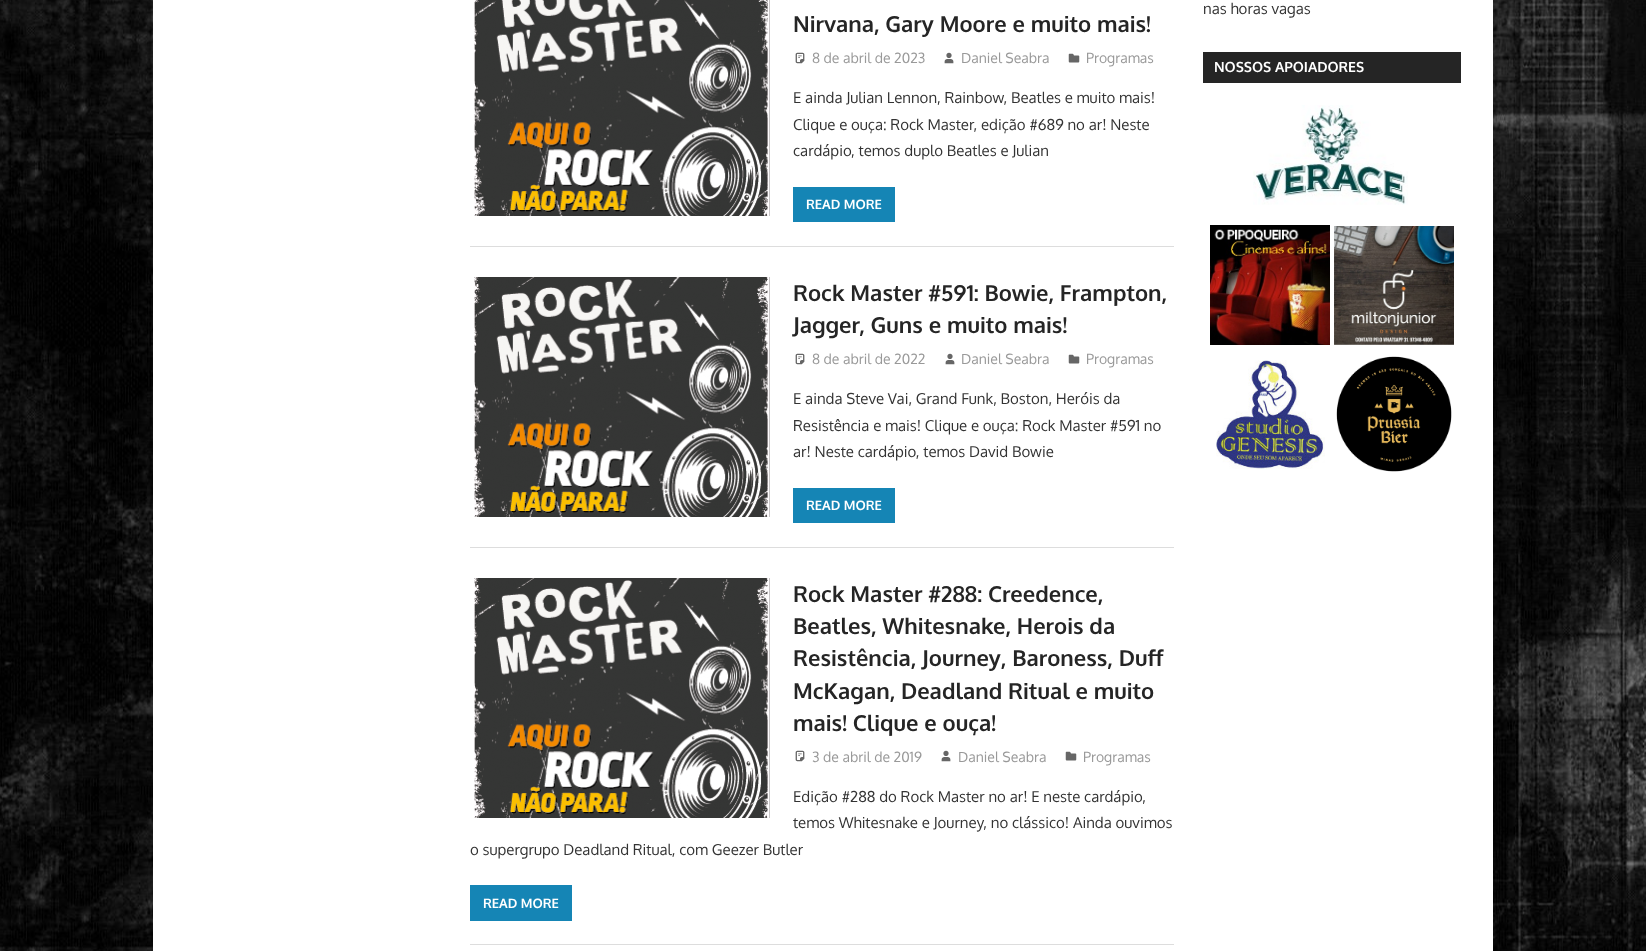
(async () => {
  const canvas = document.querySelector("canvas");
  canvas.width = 1646;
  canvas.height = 951;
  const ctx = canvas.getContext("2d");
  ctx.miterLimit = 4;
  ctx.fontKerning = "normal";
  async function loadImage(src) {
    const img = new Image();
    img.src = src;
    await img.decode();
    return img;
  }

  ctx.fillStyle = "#ffffff";
  ctx.fillRect(0, 0, 1646, 951);
  ctx.drawImage(await loadImage("img/1.png"), 0, 0, 1646, 951);
  ctx.fillRect(153, 0, 1340, 951);
  ctx.fillStyle = "#dddddd";
  ctx.fillRect(470, 246, 704, 1);
  ctx.drawImage(await loadImage("img/2.png"), 474, 0, 296, 216);
  ctx.drawImage(await loadImage("img/3.png"), 795, 52, 10, 12);
  ctx.drawImage(await loadImage("img/4.png"), 944, 52, 10, 12);
  ctx.drawImage(await loadImage("img/5.png"), 1068, 53, 12, 10);
  ctx.fillStyle = "#1585b5";
  ctx.fillRect(793, 187, 102, 35);
  ctx.fillStyle = "#dddddd";
  ctx.fillRect(470, 547, 704, 1);
  ctx.drawImage(await loadImage("img/6.png"), 474, 277, 296, 240);
  ctx.drawImage(await loadImage("img/3.png"), 795, 353, 10, 12);
  ctx.drawImage(await loadImage("img/4.png"), 945, 353, 10, 12);
  ctx.drawImage(await loadImage("img/5.png"), 1068, 354, 12, 10);
  ctx.fillStyle = "#1585b5";
  ctx.fillRect(793, 488, 102, 35);
  ctx.fillStyle = "#dddddd";
  ctx.fillRect(470, 944, 704, 1);
  ctx.drawImage(await loadImage("img/6.png"), 474, 578, 296, 240);
  ctx.drawImage(await loadImage("img/3.png"), 795, 750, 10, 12);
  ctx.drawImage(await loadImage("img/4.png"), 941, 750, 10, 12);
  ctx.drawImage(await loadImage("img/5.png"), 1065, 751, 12, 10);
  ctx.fillStyle = "#1585b5";
  ctx.fillRect(470, 885, 102, 36);
  ctx.fillStyle = "#252525";
  ctx.fillRect(1203, 52, 258, 31);
  ctx.drawImage(await loadImage("img/7.png"), 1253, 105, 155, 100);
  ctx.drawImage(await loadImage("img/8.png"), 1210, 225, 120, 120);
  ctx.drawImage(await loadImage("img/9.png"), 1334, 226, 120, 119);
  ctx.drawImage(await loadImage("img/10.png"), 1216, 360, 109, 109);
  ctx.drawImage(await loadImage("img/11.png"), 1336, 356, 116, 116);
  ctx.font = "bold 22px Oxygen";
  ctx.fillText("Nirvana, Gary Moore e muito mais!", 793, 32);
  ctx.font = "14px Oxygen";
  ctx.fillStyle = "#999999";
  for (const [text, x, y] of [
    ["8 de abril de 2023", 812, 63],
    ["Daniel Seabra", 961, 63],
    ["Programas", 1086, 63],
  ]) {
    ctx.fillText(text, x, y);
  }
  ctx.font = "15px Oxygen";
  ctx.fillStyle = "#333333";
  for (const [text, x, y] of [
    ["E ainda Julian Lennon, Rainbow, Beatles e muito mais!", 793, 103],
    ["Clique e ouça: Rock Master, edição #689 no ar! Neste", 793, 130],
    ["cardápio, temos duplo Beatles e Julian", 793, 156],
  ]) {
    ctx.fillText(text, x, y);
  }
  ctx.font = "bold 13px Oxygen";
  ctx.fillStyle = "#ffffff";
  ctx.fillText("READ MORE", 806, 209);
  ctx.font = "bold 22px Oxygen";
  ctx.fillStyle = "#252525";
  ctx.fillText("Rock Master #591: Bowie, Frampton,", 793, 301);
  ctx.fillText("Jagger, Guns e muito mais!", 793, 333);
  ctx.font = "14px Oxygen";
  ctx.fillStyle = "#999999";
  for (const [text, x, y] of [
    ["8 de abril de 2022", 812, 364],
    ["Daniel Seabra", 961, 364],
    ["Programas", 1086, 364],
  ]) {
    ctx.fillText(text, x, y);
  }
  ctx.font = "15px Oxygen";
  ctx.fillStyle = "#333333";
  for (const [text, x, y] of [
    ["E ainda Steve Vai, Grand Funk, Boston, Heróis da", 793, 404],
    ["Resistência e mais! Clique e ouça: Rock Master #591 no", 793, 431],
    ["ar! Neste cardápio, temos David Bowie", 793, 457],
  ]) {
    ctx.fillText(text, x, y);
  }
  ctx.font = "bold 13px Oxygen";
  ctx.fillStyle = "#ffffff";
  ctx.fillText("READ MORE", 806, 510);
  ctx.font = "bold 22px Oxygen";
  ctx.fillStyle = "#252525";
  for (const [text, x, y] of [
    ["Rock Master #288: Creedence,", 793, 602],
    ["Beatles, Whitesnake, Herois da", 793, 634],
    ["Resistência, Journey, Baroness, Duff", 793, 666],
    ["McKagan, Deadland Ritual e muito", 793, 699],
    ["mais! Clique e ouça!", 793, 731],
  ]) {
    ctx.fillText(text, x, y);
  }
  ctx.font = "14px Oxygen";
  ctx.fillStyle = "#999999";
  for (const [text, x, y] of [
    ["3 de abril de 2019", 812, 762],
    ["Daniel Seabra", 958, 762],
    ["Programas", 1083, 762],
  ]) {
    ctx.fillText(text, x, y);
  }
  ctx.font = "15px Oxygen";
  ctx.fillStyle = "#333333";
  for (const [text, x, y] of [
    ["Edição #288 do Rock Master no ar! E neste cardápio,", 793, 802],
    ["temos Whitesnake e Journey, no clássico! Ainda ouvimos", 793, 828],
    ["o supergrupo Deadland Ritual, com Geezer Butler", 470, 855],
  ]) {
    ctx.fillText(text, x, y);
  }
  ctx.font = "bold 13px Oxygen";
  ctx.fillStyle = "#ffffff";
  ctx.fillText("READ MORE", 483, 908);
  ctx.font = "15px Oxygen";
  ctx.fillStyle = "#333333";
  ctx.fillText("nas horas vagas", 1203, 14);
  ctx.font = "bold 14px Oxygen";
  ctx.fillStyle = "#ffffff";
  ctx.fillText("NOSSOS APOIADORES", 1214, 72);
})();
